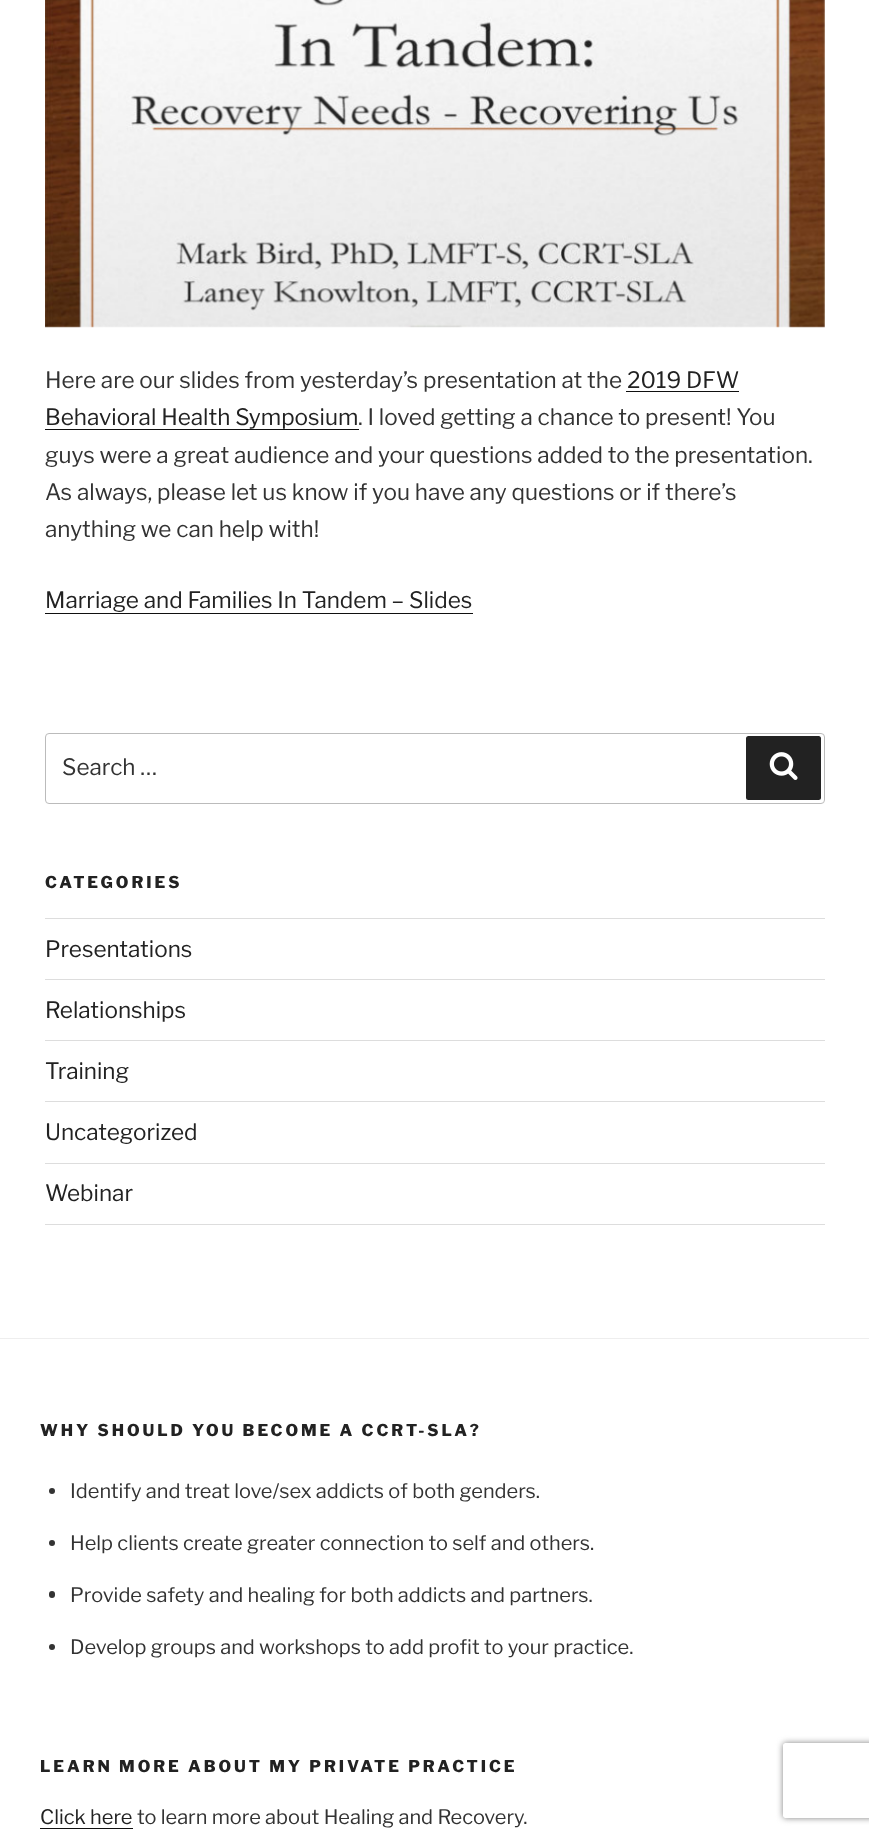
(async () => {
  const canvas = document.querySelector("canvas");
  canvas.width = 869;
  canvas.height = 1834;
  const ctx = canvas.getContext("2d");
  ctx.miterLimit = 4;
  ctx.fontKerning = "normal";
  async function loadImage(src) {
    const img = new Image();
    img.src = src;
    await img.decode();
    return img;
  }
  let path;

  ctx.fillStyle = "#ffffff";
  ctx.fillRect(0, 0, 869, 1834);
  ctx.drawImage(await loadImage("img/1.png"), 45, 0, 780, 328);
  for (const [x, y, w, h, color] of [
    [626, 391, 113, 1, "#0f0f0f"],
    [45, 429, 314, 1, "#0f0f0f"],
    [45, 613, 428, 1, "#0f0f0f"],
  ]) {
    ctx.fillStyle = color;
    ctx.fillRect(x, y, w, h);
  }
  ctx.beginPath();
  ctx.roundRect(45.5, 733.5, 779, 70, 3.5);
  ctx.strokeStyle = "#bbbbbb";
  ctx.stroke();
  ctx.fillStyle = "#222222";
  ctx.beginPath();
  ctx.roundRect(746, 736, 75, 64, 2.5);
  ctx.fill();
  ctx.drawImage(await loadImage("img/2.png"), 769, 752, 29, 28);
  for (const [x, y, w, h, color] of [
    [45, 918, 780, 1, "#dddddd"],
    [45, 979, 780, 1, "#dddddd"],
    [45, 1040, 780, 1, "#dddddd"],
    [45, 1101, 780, 1, "#dddddd"],
    [45, 1163, 780, 1, "#dddddd"],
    [45, 1224, 780, 1, "#dddddd"],
    [0, 1338, 869, 1, "#eeeeee"],
  ]) {
    ctx.fillStyle = color;
    ctx.fillRect(x, y, w, h);
  }
  ctx.fillStyle = "#333333";
  ctx.beginPath();
  ctx.arc(52, 1491, 3, 0, Math.PI * 2);
  ctx.fill();
  ctx.beginPath();
  ctx.arc(52, 1543, 3, 0, Math.PI * 2);
  ctx.fill();
  ctx.beginPath();
  ctx.roundRect(49, 1591, 6, 7, 3);
  ctx.fill();
  ctx.beginPath();
  ctx.arc(52, 1647, 3, 0, Math.PI * 2);
  ctx.fill();
  ctx.fillStyle = "#0f0f0f";
  ctx.fillRect(40, 1828, 93, 1);
  ctx.save();
  path = new Path2D("M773 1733H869V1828H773ZM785.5 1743H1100.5C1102 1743 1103 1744 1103 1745.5V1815.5C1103 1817 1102 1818 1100.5 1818H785.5C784 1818 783 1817 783 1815.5V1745.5C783 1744 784 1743 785.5 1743Z");
  ctx.clip(path, "evenodd");
  ctx.fillStyle = "#808080";
  ctx.filter = "blur(3px)";
  ctx.beginPath();
  ctx.roundRect(783, 1743, 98, 75, 2.5);
  ctx.fill();
  ctx.filter = "none";
  ctx.restore();
  ctx.font = "22.5px Libre Franklin";
  ctx.fillStyle = "#333333";
  ctx.fillText("Here are our slides from yesterday’s presentation at the", 45, 388);
  ctx.fillStyle = "#222222";
  ctx.fillText("2019 DFW", 627, 388);
  ctx.fillText("Behavioral Health Symposium", 45, 425);
  ctx.fillStyle = "#333333";
  for (const [text, x, y] of [
    [". I loved getting a chance to present! You", 358, 425],
    ["guys were a great audience and your questions added to the presentation.", 45, 463],
    ["As always, please let us know if you have any questions or if there’s", 45, 500],
    ["anything we can help with!", 45, 537],
  ]) {
    ctx.fillText(text, x, y);
  }
  ctx.fillStyle = "#222222";
  ctx.fillText("Marriage and Families In Tandem – Slides", 45, 608);
  ctx.fillStyle = "#333333";
  ctx.fillText("Search …", 62, 775);
  ctx.letterSpacing = "2.95px";
  ctx.font = "800 16.25px Libre Franklin";
  ctx.fillStyle = "#222222";
  ctx.fillText("CATEGORIES", 45, 888);
  ctx.letterSpacing = "0px";
  ctx.font = "22.5px Libre Franklin";
  for (const [text, x, y] of [
    ["Presentations", 45, 957],
    ["Relationships", 45, 1018],
    ["Training", 45, 1079],
    ["Uncategorized", 45, 1140],
    ["Webinar", 45, 1201],
  ]) {
    ctx.fillText(text, x, y);
  }
  ctx.letterSpacing = "2.95px";
  ctx.font = "800 16.25px Libre Franklin";
  ctx.fillText("WHY SHOULD YOU BECOME A CCRT-SLA?", 40, 1436);
  ctx.letterSpacing = "0px";
  ctx.font = "20px Libre Franklin";
  ctx.fillStyle = "#333333";
  for (const [text, x, y] of [
    ["Identify and treat love/sex addicts of both genders.", 70, 1498],
    ["Help clients create greater connection to self and others.", 70, 1550],
    ["Provide safety and healing for both addicts and partners.", 70, 1602],
    ["Develop groups and workshops to add profit to your practice.", 70, 1654],
  ]) {
    ctx.fillText(text, x, y);
  }
  ctx.letterSpacing = "2.95px";
  ctx.font = "800 16.25px Libre Franklin";
  ctx.fillStyle = "#222222";
  ctx.fillText("LEARN MORE ABOUT MY PRIVATE PRACTICE", 40, 1772);
  ctx.letterSpacing = "0px";
  ctx.font = "20px Libre Franklin";
  ctx.fillText("Click here", 40, 1824);
  ctx.fillStyle = "#333333";
  ctx.fillText("to learn more about Healing and Recovery.", 137, 1824);
})();
